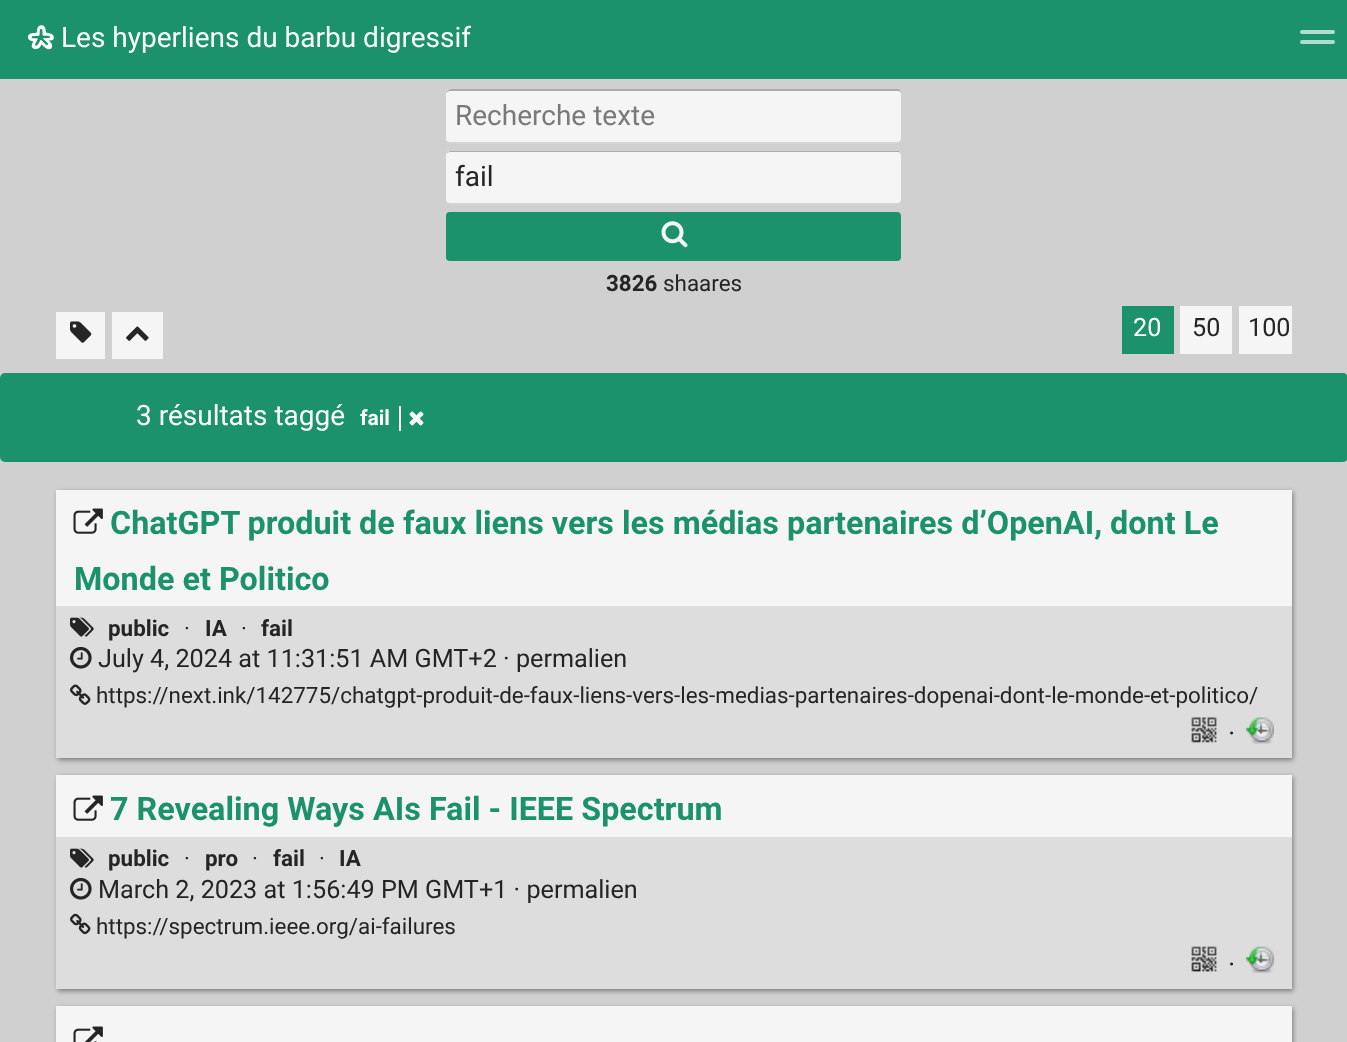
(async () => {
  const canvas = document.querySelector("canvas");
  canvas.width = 1347;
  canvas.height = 1042;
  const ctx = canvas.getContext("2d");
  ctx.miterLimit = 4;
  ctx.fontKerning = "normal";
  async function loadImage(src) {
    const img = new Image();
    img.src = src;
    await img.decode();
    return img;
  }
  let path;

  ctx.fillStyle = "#d0d0d0";
  ctx.fillRect(0, 0, 1347, 1042);
  ctx.fillStyle = "#1b926c";
  ctx.fillRect(0, 0, 1347, 79);
  ctx.drawImage(await loadImage("img/1.png"), 28, 25, 26, 25);
  ctx.fillStyle = "#b0ddce";
  ctx.beginPath();
  ctx.roundRect(1300, 30, 35, 4, 2);
  ctx.fill();
  ctx.beginPath();
  ctx.roundRect(1300, 40, 35, 4, 2);
  ctx.fill();
  ctx.fillStyle = "#d4d4d4";
  path = new Path2D("M446 94V140C446 142 448 144 450 144H897C899 144 901 142 901 140C900 141 899 142 898 142H450C448 142 446 140 446 138Z");
  ctx.fill(path);
  ctx.fillStyle = "#f5f5f5";
  ctx.beginPath();
  ctx.roundRect(446, 89, 455, 53, 4);
  ctx.fill();
  ctx.fillStyle = "rgba(0, 0, 0, 0.3)";
  path = new Path2D("M450 91H898C900 91 901 93 901 94C901 91 900 89 897 89H450L448 90L447 91L446 94C446 93 448 91 450 91Z");
  ctx.fill(path);
  ctx.fillStyle = "#d4d4d4";
  path = new Path2D("M446 155V194C446 196 444 205 450 205H897C899 205 901 203 901 201C900 202 899 203 898 203H450C448 203 446 201 446 200Z");
  ctx.fill(path);
  ctx.fillStyle = "#f5f5f5";
  ctx.beginPath();
  ctx.roundRect(446, 151, 455, 52, 4);
  ctx.fill();
  ctx.fillStyle = "rgba(0, 0, 0, 0.3)";
  path = new Path2D("M450 152H898C900 152 901 154 901 156C901 153 900 151 897 151H450L448 152L447 153L446 156C446 154 448 152 450 152Z");
  ctx.fill(path);
  ctx.fillStyle = "#1b926c";
  ctx.beginPath();
  ctx.roundRect(446, 212, 455, 49, 4);
  ctx.fill();
  ctx.drawImage(await loadImage("img/2.png"), 661, 221, 27, 27);
  ctx.fillStyle = "#f5f5f5";
  ctx.fillRect(56, 312, 49, 47);
  ctx.drawImage(await loadImage("img/3.png"), 70, 321, 22, 22);
  ctx.fillRect(112, 312, 51, 47);
  ctx.drawImage(await loadImage("img/4.png"), 126, 326, 23, 15);
  for (const [x, y, w, h, color] of [
    [1122, 306, 52, 48, "#1b926c"],
    [1180, 306, 52, 48, "#f5f5f5"],
    [1239, 306, 53, 48, "#f5f5f5"],
  ]) {
    ctx.fillStyle = color;
    ctx.fillRect(x, y, w, h);
  }
  ctx.fillStyle = "#1b926c";
  ctx.beginPath();
  ctx.roundRect(0, 373, 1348, 89, 5);
  ctx.fill();
  ctx.fillStyle = "#ffffff";
  ctx.fillRect(399, 406, 2, 25);
  ctx.drawImage(await loadImage("img/5.png"), 409, 411, 15, 15);
  ctx.fillStyle = "#797979";
  ctx.filter = "blur(2.5px)";
  ctx.beginPath();
  ctx.rect(58, 492, 1235, 268);
  ctx.fill();
  ctx.filter = "none";
  ctx.fillStyle = "#f5f5f5";
  ctx.fillRect(56, 490, 1236, 116);
  ctx.drawImage(await loadImage("img/6.png"), 73, 508, 30, 26);
  ctx.fillStyle = "#dddddd";
  ctx.fillRect(56, 606, 1236, 152);
  ctx.drawImage(await loadImage("img/7.png"), 70, 617, 24, 20);
  ctx.drawImage(await loadImage("img/8.png"), 70, 646, 22, 23);
  ctx.drawImage(await loadImage("img/9.png"), 70, 684, 21, 21);
  ctx.drawImage(await loadImage("img/10.png"), 1191, 717, 26, 26);
  ctx.drawImage(await loadImage("img/11.png"), 1246, 717, 28, 27);
  ctx.fillStyle = "#797979";
  ctx.filter = "blur(2.5px)";
  ctx.beginPath();
  ctx.rect(58, 777, 1235, 214);
  ctx.fill();
  ctx.filter = "none";
  ctx.fillStyle = "#f5f5f5";
  ctx.fillRect(56, 775, 1236, 62);
  ctx.drawImage(await loadImage("img/6.png"), 73, 795, 30, 26);
  ctx.fillStyle = "#dddddd";
  ctx.fillRect(56, 837, 1236, 152);
  ctx.drawImage(await loadImage("img/7.png"), 70, 848, 24, 20);
  ctx.drawImage(await loadImage("img/8.png"), 70, 877, 22, 23);
  ctx.drawImage(await loadImage("img/12.png"), 70, 913, 21, 22);
  ctx.drawImage(await loadImage("img/13.png"), 1191, 946, 26, 26);
  ctx.drawImage(await loadImage("img/14.png"), 1246, 946, 28, 27);
  ctx.fillStyle = "#797979";
  ctx.filter = "blur(2.5px)";
  ctx.beginPath();
  ctx.rect(58, 1008, 1235, 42);
  ctx.fill();
  ctx.filter = "none";
  ctx.fillStyle = "#f5f5f5";
  ctx.fillRect(56, 1006, 1236, 36);
  ctx.drawImage(await loadImage("img/15.png"), 73, 1026, 30, 16);
  ctx.font = "28px Roboto";
  ctx.fillStyle = "#ffffff";
  ctx.fillText("Les hyperliens du barbu digressif", 61, 47);
  ctx.fillStyle = "#797979";
  ctx.fillText("Recherche texte", 455, 125);
  ctx.fillStyle = "#252525";
  ctx.fillText("fail", 455, 186);
  ctx.font = "bold 22.4px Roboto";
  ctx.fillText("3826", 606, 291);
  ctx.font = "22.4px Roboto";
  ctx.fillText("shaares", 663, 291);
  ctx.font = "25.2px Roboto";
  ctx.fillStyle = "#ffffff";
  ctx.fillText("20", 1133, 336);
  ctx.fillStyle = "#252525";
  ctx.fillText("50", 1192, 336);
  ctx.fillText("100", 1248, 336);
  ctx.font = "28px Roboto";
  ctx.fillStyle = "#ffffff";
  ctx.fillText("3 résultats taggé", 136, 425);
  ctx.font = "bold 21px Roboto";
  ctx.fillText("fail", 360, 425);
  ctx.font = "bold 32.35px Roboto";
  ctx.fillStyle = "#1b926c";
  ctx.fillText("ChatGPT produit de faux liens vers les médias partenaires d’OpenAI, dont Le", 110, 534);
  ctx.fillText("Monde et Politico", 74, 590);
  ctx.font = "bold 22.4px Roboto";
  ctx.fillStyle = "#252525";
  ctx.fillText("public", 108, 636);
  ctx.font = "22.4px Roboto";
  ctx.fillText("·", 184, 636);
  ctx.font = "bold 22.4px Roboto";
  ctx.fillText("IA", 205, 636);
  ctx.font = "22.4px Roboto";
  ctx.fillText("·", 241, 636);
  ctx.font = "bold 22.4px Roboto";
  ctx.fillText("fail", 261, 636);
  ctx.font = "25.2px Roboto";
  ctx.fillText("July 4, 2024 at 11:31:51 AM GMT+2 · permalien", 98, 667);
  ctx.font = "22.4px Roboto";
  ctx.fillText("https://next.ink/142775/chatgpt-produit-de-faux-liens-vers-les-medias-partenaires-dopenai-dont-le-monde-et-politico/", 96, 703);
  ctx.font = "28px Roboto";
  ctx.fillText("·", 1228, 743);
  ctx.font = "bold 32.35px Roboto";
  ctx.fillStyle = "#1b926c";
  ctx.fillText("7 Revealing Ways AIs Fail - IEEE Spectrum", 110, 820);
  ctx.font = "bold 22.4px Roboto";
  ctx.fillStyle = "#252525";
  ctx.fillText("public", 108, 866);
  ctx.font = "22.4px Roboto";
  ctx.fillText("·", 184, 866);
  ctx.font = "bold 22.4px Roboto";
  ctx.fillText("pro", 205, 866);
  ctx.font = "22.4px Roboto";
  ctx.fillText("·", 252, 866);
  ctx.font = "bold 22.4px Roboto";
  ctx.fillText("fail", 273, 866);
  ctx.font = "22.4px Roboto";
  ctx.fillText("·", 319, 866);
  ctx.font = "bold 22.4px Roboto";
  ctx.fillText("IA", 339, 866);
  ctx.font = "25.2px Roboto";
  ctx.fillText("March 2, 2023 at 1:56:49 PM GMT+1 · permalien", 98, 898);
  ctx.font = "22.4px Roboto";
  ctx.fillText("https://spectrum.ieee.org/ai-failures", 96, 934);
  ctx.font = "28px Roboto";
  ctx.fillText("·", 1228, 974);
})();
